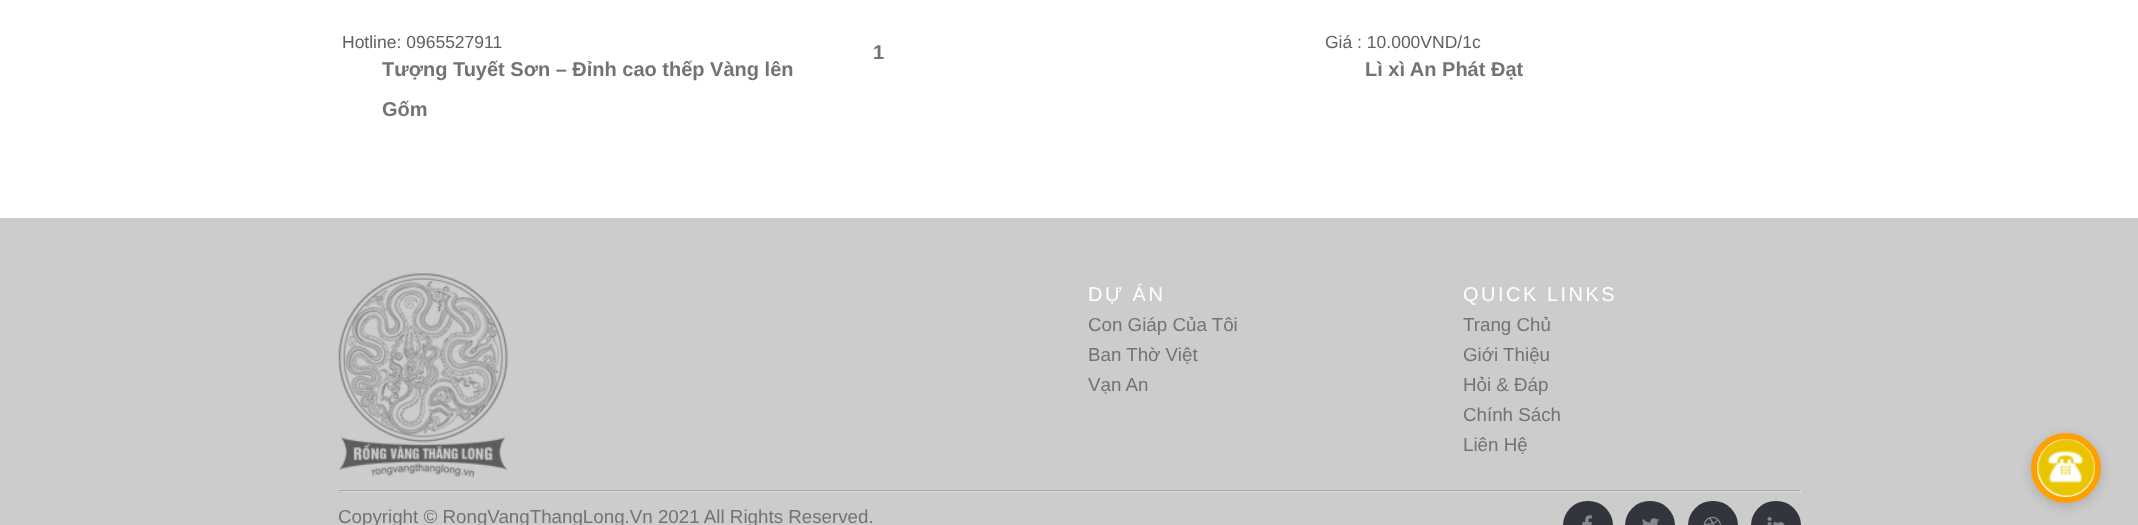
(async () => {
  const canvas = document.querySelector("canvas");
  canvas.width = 2138;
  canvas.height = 525;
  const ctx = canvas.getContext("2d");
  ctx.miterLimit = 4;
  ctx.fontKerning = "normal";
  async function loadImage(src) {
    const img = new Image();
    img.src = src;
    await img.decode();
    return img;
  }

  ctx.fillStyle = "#ffffff";
  ctx.fillRect(0, 0, 2138, 525);
  ctx.fillStyle = "#cccccc";
  ctx.fillRect(0, 218, 2138, 307);
  ctx.drawImage(await loadImage("img/1.png"), 338, 273, 170, 205);
  for (const [x, y, w, h, color] of [
    [339, 490, 1462, 1, "#a5a5a5"],
    [1800, 490, 1, 3, "#dddddd"],
    [339, 491, 1462, 1, "#dddddd"],
    [339, 490, 1, 3, "#b6b6b6"],
  ]) {
    ctx.fillStyle = color;
    ctx.fillRect(x, y, w, h);
  }
  ctx.fillStyle = "#33353d";
  ctx.beginPath();
  ctx.roundRect(1563, 501, 50, 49, 25);
  ctx.fill();
  ctx.drawImage(await loadImage("img/2.png"), 1582, 515, 10, 10);
  ctx.beginPath();
  ctx.roundRect(1625, 501, 50, 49, 25);
  ctx.fill();
  ctx.drawImage(await loadImage("img/3.png"), 1642, 518, 17, 7);
  ctx.beginPath();
  ctx.roundRect(1688, 501, 50, 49, 25);
  ctx.fill();
  ctx.drawImage(await loadImage("img/4.png"), 1703, 516, 18, 9);
  ctx.beginPath();
  ctx.roundRect(1751, 501, 50, 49, 25);
  ctx.fill();
  ctx.drawImage(await loadImage("img/5.png"), 1767, 517, 18, 8);
  ctx.fillStyle = "rgba(0, 0, 0, 0.08)";
  ctx.filter = "blur(6px)";
  ctx.beginPath();
  ctx.roundRect(2031, 436, 70, 70, 35);
  ctx.fill();
  ctx.filter = "none";
  ctx.filter = "blur(6px)";
  ctx.beginPath();
  ctx.roundRect(2031, 436, 70, 70, 35);
  ctx.fill();
  ctx.filter = "none";
  ctx.fillStyle = "#ffffff";
  ctx.beginPath();
  ctx.arc(2066, 468, 32, 0, Math.PI * 2);
  ctx.fill();
  ctx.strokeStyle = "#ffa000";
  ctx.lineWidth = 6;
  ctx.stroke();
  ctx.drawImage(await loadImage("img/6.png"), 2037, 438, 58, 59);
  ctx.font = "17.5px Liberation Sans";
  ctx.fillStyle = "#616161";
  ctx.fillText("Hotline: 0965527911", 342, 48);
  ctx.font = "bold 20px Liberation Sans";
  ctx.fillStyle = "#737373";
  for (const [text, x, y] of [
    ["Tượng Tuyết Sơn – Đỉnh cao thếp Vàng lên", 382, 76],
    ["Gốm", 382, 116],
    ["1", 873, 59],
  ]) {
    ctx.fillText(text, x, y);
  }
  ctx.font = "17.5px Liberation Sans";
  ctx.fillStyle = "#616161";
  ctx.fillText("Giá : 10.000VND/1c", 1325, 48);
  ctx.font = "bold 20px Liberation Sans";
  ctx.fillStyle = "#737373";
  ctx.fillText("Lì xì An Phát Đạt", 1365, 76);
  ctx.letterSpacing = "2.5px";
  ctx.font = "20px Liberation Sans";
  ctx.fillStyle = "#ffffff";
  ctx.fillText("DỰ ÁN", 1088, 301);
  ctx.letterSpacing = "0px";
  ctx.font = "18.75px Liberation Sans";
  ctx.fillStyle = "#737373";
  for (const [text, x, y] of [
    ["Con Giáp Của Tôi", 1088, 331],
    ["Ban Thờ Việt", 1088, 361],
    ["Vạn An", 1088, 391],
  ]) {
    ctx.fillText(text, x, y);
  }
  ctx.letterSpacing = "2.5px";
  ctx.font = "20px Liberation Sans";
  ctx.fillStyle = "#ffffff";
  ctx.fillText("QUICK LINKS", 1463, 301);
  ctx.letterSpacing = "0px";
  ctx.font = "18.75px Liberation Sans";
  ctx.fillStyle = "#737373";
  for (const [text, x, y] of [
    ["Trang Chủ", 1463, 331],
    ["Giới Thiệu", 1463, 361],
    ["Hỏi & Đáp", 1463, 391],
    ["Chính Sách", 1463, 421],
    ["Liên Hệ", 1463, 451],
    ["Copyright © RongVangThangLong.Vn 2021 All Rights Reserved.", 338, 523],
  ]) {
    ctx.fillText(text, x, y);
  }
})();
